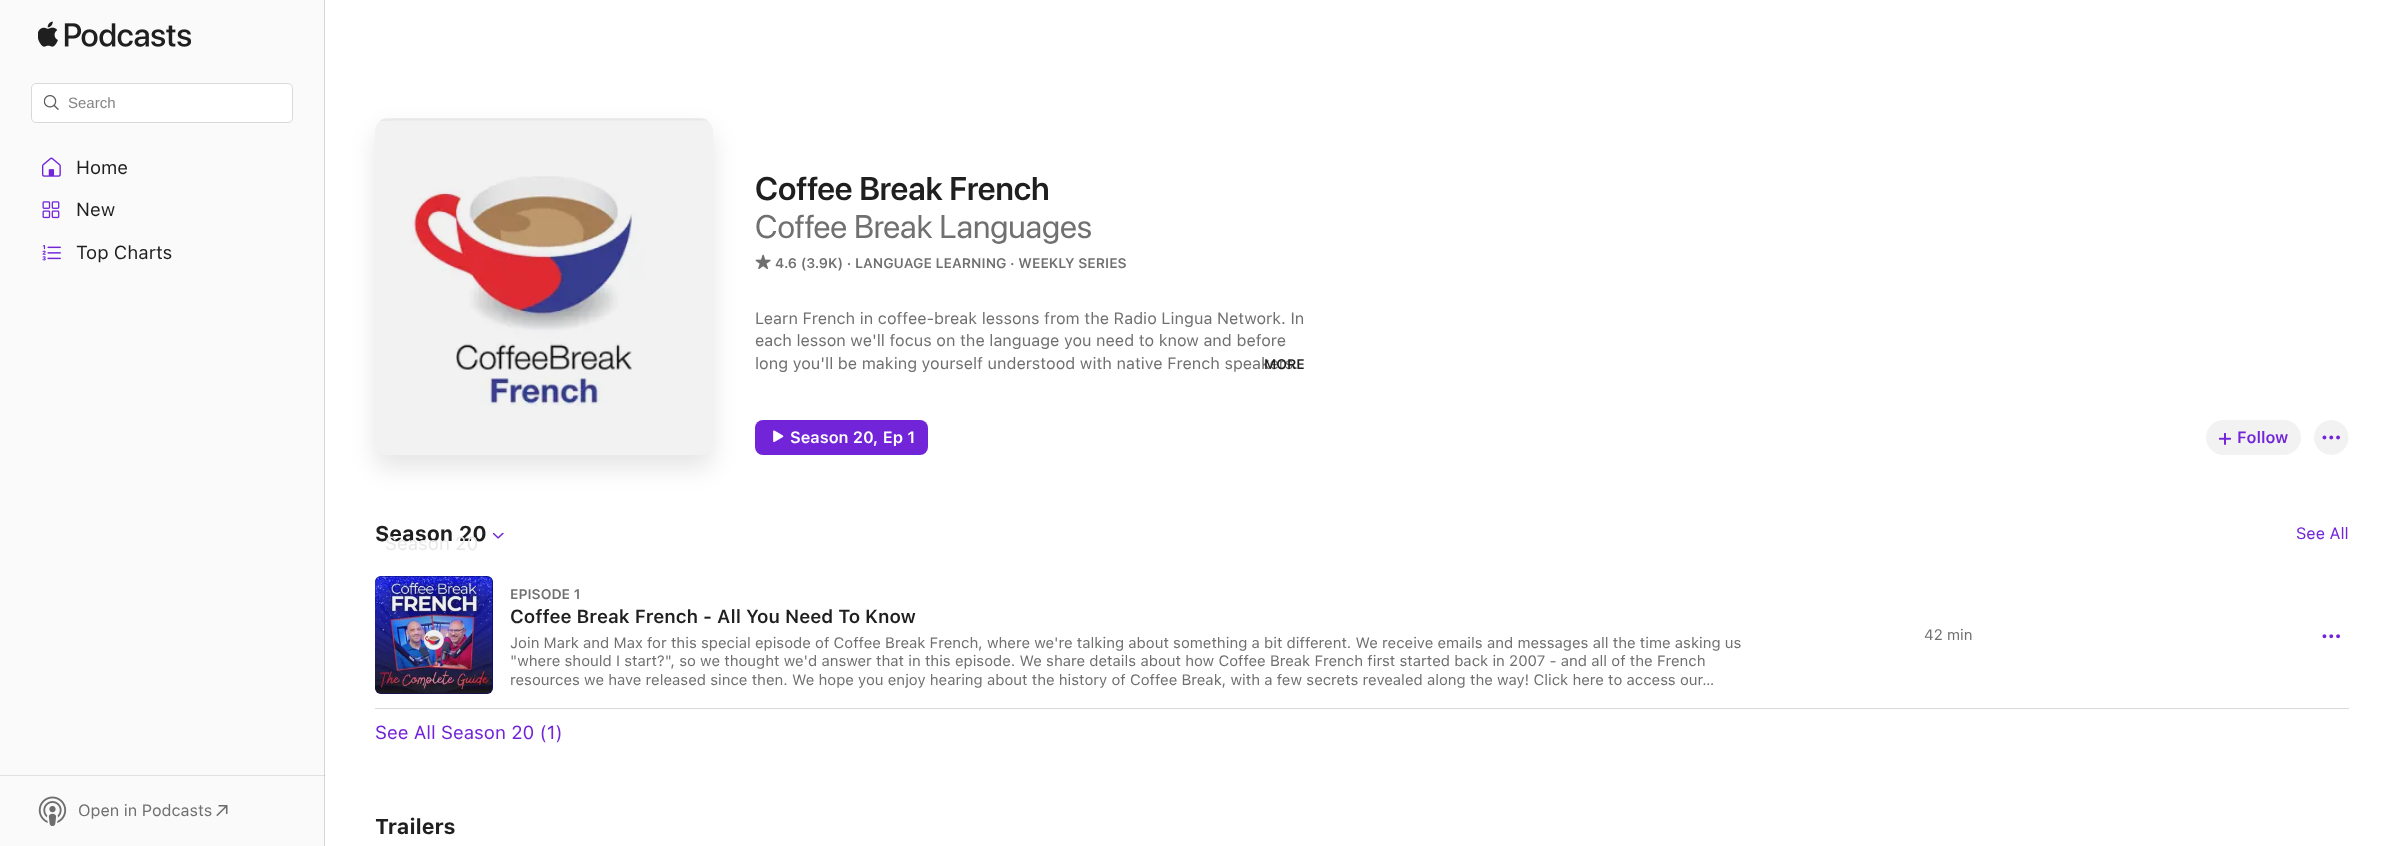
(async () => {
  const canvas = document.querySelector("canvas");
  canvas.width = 2398;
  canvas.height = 846;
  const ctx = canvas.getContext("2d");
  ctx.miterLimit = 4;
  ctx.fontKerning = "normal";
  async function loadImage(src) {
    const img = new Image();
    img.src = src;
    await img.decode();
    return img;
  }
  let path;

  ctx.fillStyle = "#ffffff";
  ctx.fillRect(0, 0, 2398, 846);
  for (const [x, y, w, h, color] of [
    [0, 0, 324, 846, "#fafafa"],
    [0, 775, 325, 1, "#e1e1e1"],
    [324, 0, 1, 846, "#d5d5d5"],
    [324, 775, 1, 1, "#c0c0c0"],
  ]) {
    ctx.fillStyle = color;
    ctx.fillRect(x, y, w, h);
  }
  ctx.drawImage(await loadImage("img/1.png"), 38, 21, 153, 26);
  ctx.fillStyle = "#ffffff";
  ctx.beginPath();
  ctx.roundRect(31.5, 83.5, 261, 39, 4.5);
  ctx.fill();
  ctx.strokeStyle = "#d9d9d9";
  ctx.stroke();
  ctx.drawImage(await loadImage("img/2.png"), 44, 95, 15, 15);
  ctx.drawImage(await loadImage("img/3.png"), 41, 157, 20, 20);
  ctx.drawImage(await loadImage("img/4.png"), 42, 201, 18, 18);
  ctx.drawImage(await loadImage("img/5.png"), 42, 245, 19, 16);
  ctx.drawImage(await loadImage("img/6.png"), 38, 796, 29, 30);
  ctx.drawImage(await loadImage("img/7.png"), 216, 805, 12, 11);
  ctx.save();
  path = new Path2D("M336 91H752V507H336ZM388 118H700C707 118 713 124 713 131V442C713 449 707 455 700 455H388C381 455 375 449 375 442V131C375 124 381 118 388 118Z");
  ctx.clip(path, "evenodd");
  ctx.fillStyle = "rgba(0, 0, 0, 0.1)";
  ctx.filter = "blur(12.5px)";
  ctx.beginPath();
  ctx.roundRect(375, 130, 338, 338, 13);
  ctx.fill();
  ctx.filter = "none";
  ctx.restore();
  ctx.drawImage(await loadImage("img/8.png"), 380, 118, 327, 288);
  ctx.fillStyle = "rgba(128, 128, 128, 0.1)";
  path = new Path2D("M388 118H700C707 118 713 124 713 131V442C713 449 707 455 700 455H388C381 455 375 449 375 442V131C375 124 381 118 388 118Z");
  ctx.fill(path);
  ctx.drawImage(await loadImage("img/9.png"), 755, 254, 16, 15);
  ctx.fillStyle = "#7224d8";
  ctx.beginPath();
  ctx.roundRect(755, 420, 173, 35, 8);
  ctx.fill();
  ctx.drawImage(await loadImage("img/10.png"), 773, 430, 11, 12);
  ctx.fillStyle = "#f2f2f2";
  ctx.beginPath();
  ctx.roundRect(2206, 420, 95, 35, 17.5);
  ctx.fill();
  ctx.drawImage(await loadImage("img/11.png"), 2219, 433, 12, 12);
  ctx.drawImage(await loadImage("img/12.png"), 2314, 420, 35, 35);
  ctx.drawImage(await loadImage("img/13.png"), 493, 533, 11, 6);
  ctx.fillStyle = "#d9d9d9";
  ctx.fillRect(375, 708, 1974, 1);
  ctx.fillStyle = "#000370";
  ctx.beginPath();
  ctx.roundRect(375, 576, 118, 118, 6);
  ctx.fill();
  ctx.drawImage(await loadImage("img/14.png"), 375, 576, 118, 118);
  ctx.fillStyle = "rgba(128, 128, 128, 0.1)";
  path = new Path2D("M381 576H487C490 576 493 579 493 582V688C493 691 490 694 487 694H381C378 694 375 691 375 688V582C375 579 378 576 381 576Z");
  ctx.fill(path);
  ctx.drawImage(await loadImage("img/15.png"), 2322, 634, 18, 5);
  ctx.font = "15px Liberation Sans";
  ctx.fillStyle = "#858585";
  ctx.fillText("Search", 68, 108);
  ctx.font = "18.75px 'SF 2'";
  ctx.fillStyle = "#1f1f1f";
  for (const [text, x, y] of [
    ["Home", 76, 174],
    ["New", 76, 216],
    ["Top Charts", 76, 259],
  ]) {
    ctx.fillText(text, x, y);
  }
  ctx.font = "16.25px 'SF 2'";
  ctx.fillStyle = "#707070";
  ctx.fillText("Open in Podcasts", 78, 816);
  ctx.font = "600 32.5px 'SF 2'";
  ctx.fillStyle = "#1f1f1f";
  ctx.fillText("Coffee Break French", 755, 200);
  ctx.font = "32.5px SF";
  ctx.fillStyle = "#707070";
  ctx.fillText("Coffee Break Languages", 755, 238);
  ctx.font = "600 13.75px SF";
  ctx.fillText("4.6 (3.9K) · LANGUAGE LEARNING · WEEKLY SERIES", 775, 268);
  ctx.font = "16.25px 'SF 2'";
  for (const [text, x, y] of [
    ["Learn French in coffee-break lessons from the Radio Lingua Network. In", 755, 324],
    ["each lesson we'll focus on the language you need to know and before", 755, 346],
    ["long you'll be making yourself understood with native French speakers.", 755, 369],
  ]) {
    ctx.fillText(text, x, y);
  }
  ctx.font = "600 13.75px SF";
  ctx.fillStyle = "#1f1f1f";
  ctx.fillText("MORE", 1264, 369);
  ctx.font = "600 16.25px SF";
  ctx.fillStyle = "#ffffff";
  ctx.fillText("Season 20, Ep 1", 790, 443);
  ctx.fillStyle = "#7224d8";
  ctx.fillText("Follow", 2237, 443);
  ctx.font = "bold 21.25px SF";
  ctx.fillStyle = "#1f1f1f";
  ctx.fillText("Season 20", 375, 541);
  ctx.font = "18.75px 'SF 2'";
  ctx.fillStyle = "#e8e8e8";
  ctx.fillText("Season 20", 385, 550);
  ctx.font = "16.25px 'SF 2'";
  ctx.fillStyle = "#7224d8";
  ctx.fillText("See All", 2296, 539);
  ctx.font = "600 13.75px SF";
  ctx.fillStyle = "#707070";
  ctx.fillText("EPISODE 1", 510, 599);
  ctx.font = "600 18.75px SF";
  ctx.fillStyle = "#1f1f1f";
  ctx.fillText("Coffee Break French - All You Need To Know", 510, 623);
  ctx.font = "15px 'SF 2'";
  ctx.fillStyle = "#707070";
  for (const [text, x, y] of [
    ["Join Mark and Max for this special episode of Coffee Break French, where we're talking about something a bit different. We receive emails and messages all the time asking us", 510, 648],
    ["\"where should I start?\", so we thought we'd answer that in this episode. We share details about how Coffee Break French first started back in 2007 - and all of the French", 510, 666],
    ["resources we have released since then. We hope you enjoy hearing about the history of Coffee Break, with a few secrets revealed along the way! Click here to access our…", 510, 685],
    ["42 min", 1924, 640],
  ]) {
    ctx.fillText(text, x, y);
  }
  ctx.font = "18.75px 'SF 2'";
  ctx.fillStyle = "#7224d8";
  ctx.fillText("See All Season 20 (1)", 375, 739);
  ctx.font = "bold 21.25px SF";
  ctx.fillStyle = "#1f1f1f";
  ctx.fillText("Trailers", 375, 834);
})();
